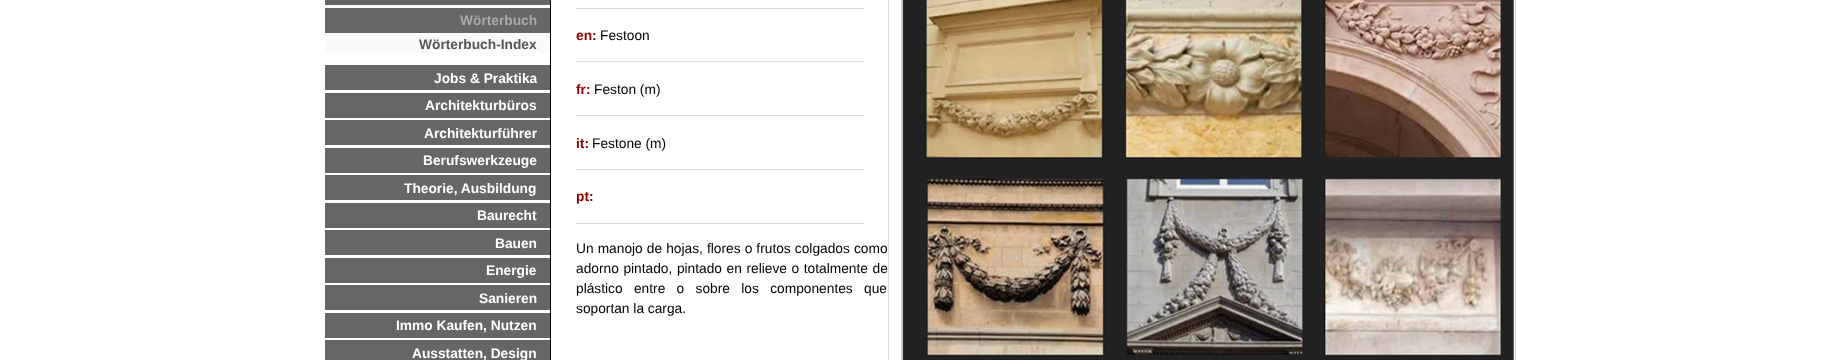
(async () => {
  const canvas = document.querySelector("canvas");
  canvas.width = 1848;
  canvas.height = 360;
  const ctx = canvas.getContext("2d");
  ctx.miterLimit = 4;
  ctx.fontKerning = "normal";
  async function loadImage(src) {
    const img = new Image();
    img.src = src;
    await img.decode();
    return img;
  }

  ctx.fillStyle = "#ffffff";
  ctx.fillRect(0, 0, 1848, 360);
  for (const [x, y, w, h, color] of [
    [550, 0, 1, 360, "#000000"],
    [325, 0, 225, 5, "#666666"],
    [325, 8, 225, 25, "#666666"],
    [325, 35, 225, 18, "#fafafa"],
    [325, 65, 225, 25, "#666666"],
    [325, 93, 225, 25, "#666666"],
    [325, 120, 225, 25, "#666666"],
    [325, 148, 225, 25, "#666666"],
    [325, 175, 225, 25, "#666666"],
    [325, 203, 225, 25, "#666666"],
    [325, 230, 225, 25, "#666666"],
    [325, 258, 225, 25, "#666666"],
    [325, 285, 225, 25, "#666666"],
    [325, 313, 225, 25, "#666666"],
    [325, 340, 225, 20, "#666666"],
    [576, 8, 288, 1, "#dddddd"],
    [888, 0, 1, 360, "#dddddd"],
  ]) {
    ctx.fillStyle = color;
    ctx.fillRect(x, y, w, h);
  }
  ctx.strokeStyle = "#cccccc";
  ctx.strokeRect(901.5, -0.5, 614, 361);
  ctx.drawImage(await loadImage("img/1.png"), 902, 0, 612, 360);
  for (const [x, y, w, h, color] of [
    [576, 61, 288, 1, "#dddddd"],
    [576, 115, 288, 1, "#dddddd"],
    [576, 169, 288, 1, "#dddddd"],
    [576, 223, 288, 1, "#dddddd"],
  ]) {
    ctx.fillStyle = color;
    ctx.fillRect(x, y, w, h);
  }
  ctx.font = "bold 13.75px Liberation Sans";
  ctx.fillStyle = "#aaaaaa";
  ctx.fillText("Wörterbuch", 460, 25);
  ctx.fillStyle = "#555555";
  ctx.fillText("Wörterbuch-Index", 419, 49);
  ctx.fillStyle = "#ffffff";
  for (const [text, x, y] of [
    ["Jobs & Praktika", 434, 83],
    ["Architekturbüros", 425, 110],
    ["Architekturführer", 424, 138],
    ["Berufswerkzeuge", 423, 165],
    ["Theorie, Ausbildung", 404, 193],
    ["Baurecht", 477, 220],
    ["Bauen", 495, 248],
    ["Energie", 486, 275],
    ["Sanieren", 479, 303],
    ["Immo Kaufen, Nutzen", 396, 330],
    ["Ausstatten, Design", 412, 358],
  ]) {
    ctx.fillText(text, x, y);
  }
  ctx.fillStyle = "#8b0000";
  ctx.fillText("en:", 576, 40);
  ctx.font = "13.75px Liberation Sans";
  ctx.fillStyle = "#000000";
  ctx.fillText("Festoon", 600, 40);
  ctx.font = "bold 13.75px Liberation Sans";
  ctx.fillStyle = "#8b0000";
  ctx.fillText("fr:", 576, 94);
  ctx.font = "13.75px Liberation Sans";
  ctx.fillStyle = "#000000";
  ctx.fillText("Feston (m)", 594, 94);
  ctx.font = "bold 13.75px Liberation Sans";
  ctx.fillStyle = "#8b0000";
  ctx.fillText("it:", 576, 148);
  ctx.font = "13.75px Liberation Sans";
  ctx.fillStyle = "#000000";
  ctx.fillText("Festone (m)", 592, 148);
  ctx.font = "bold 13.75px Liberation Sans";
  ctx.fillStyle = "#8b0000";
  ctx.fillText("pt:", 576, 201);
  ctx.wordSpacing = "0.25px";
  ctx.font = "13.75px Liberation Sans";
  ctx.fillStyle = "#000000";
  ctx.fillText("Un manojo de hojas, flores o frutos colgados como", 576, 253);
  ctx.wordSpacing = "0.75px";
  ctx.fillText("adorno pintado, pintado en relieve o totalmente de", 576, 273);
  ctx.wordSpacing = "7.5px";
  ctx.fillText("plástico entre o sobre los componentes que", 576, 293);
  ctx.wordSpacing = "0px";
  ctx.fillText("soportan la carga.", 576, 313);
})();
